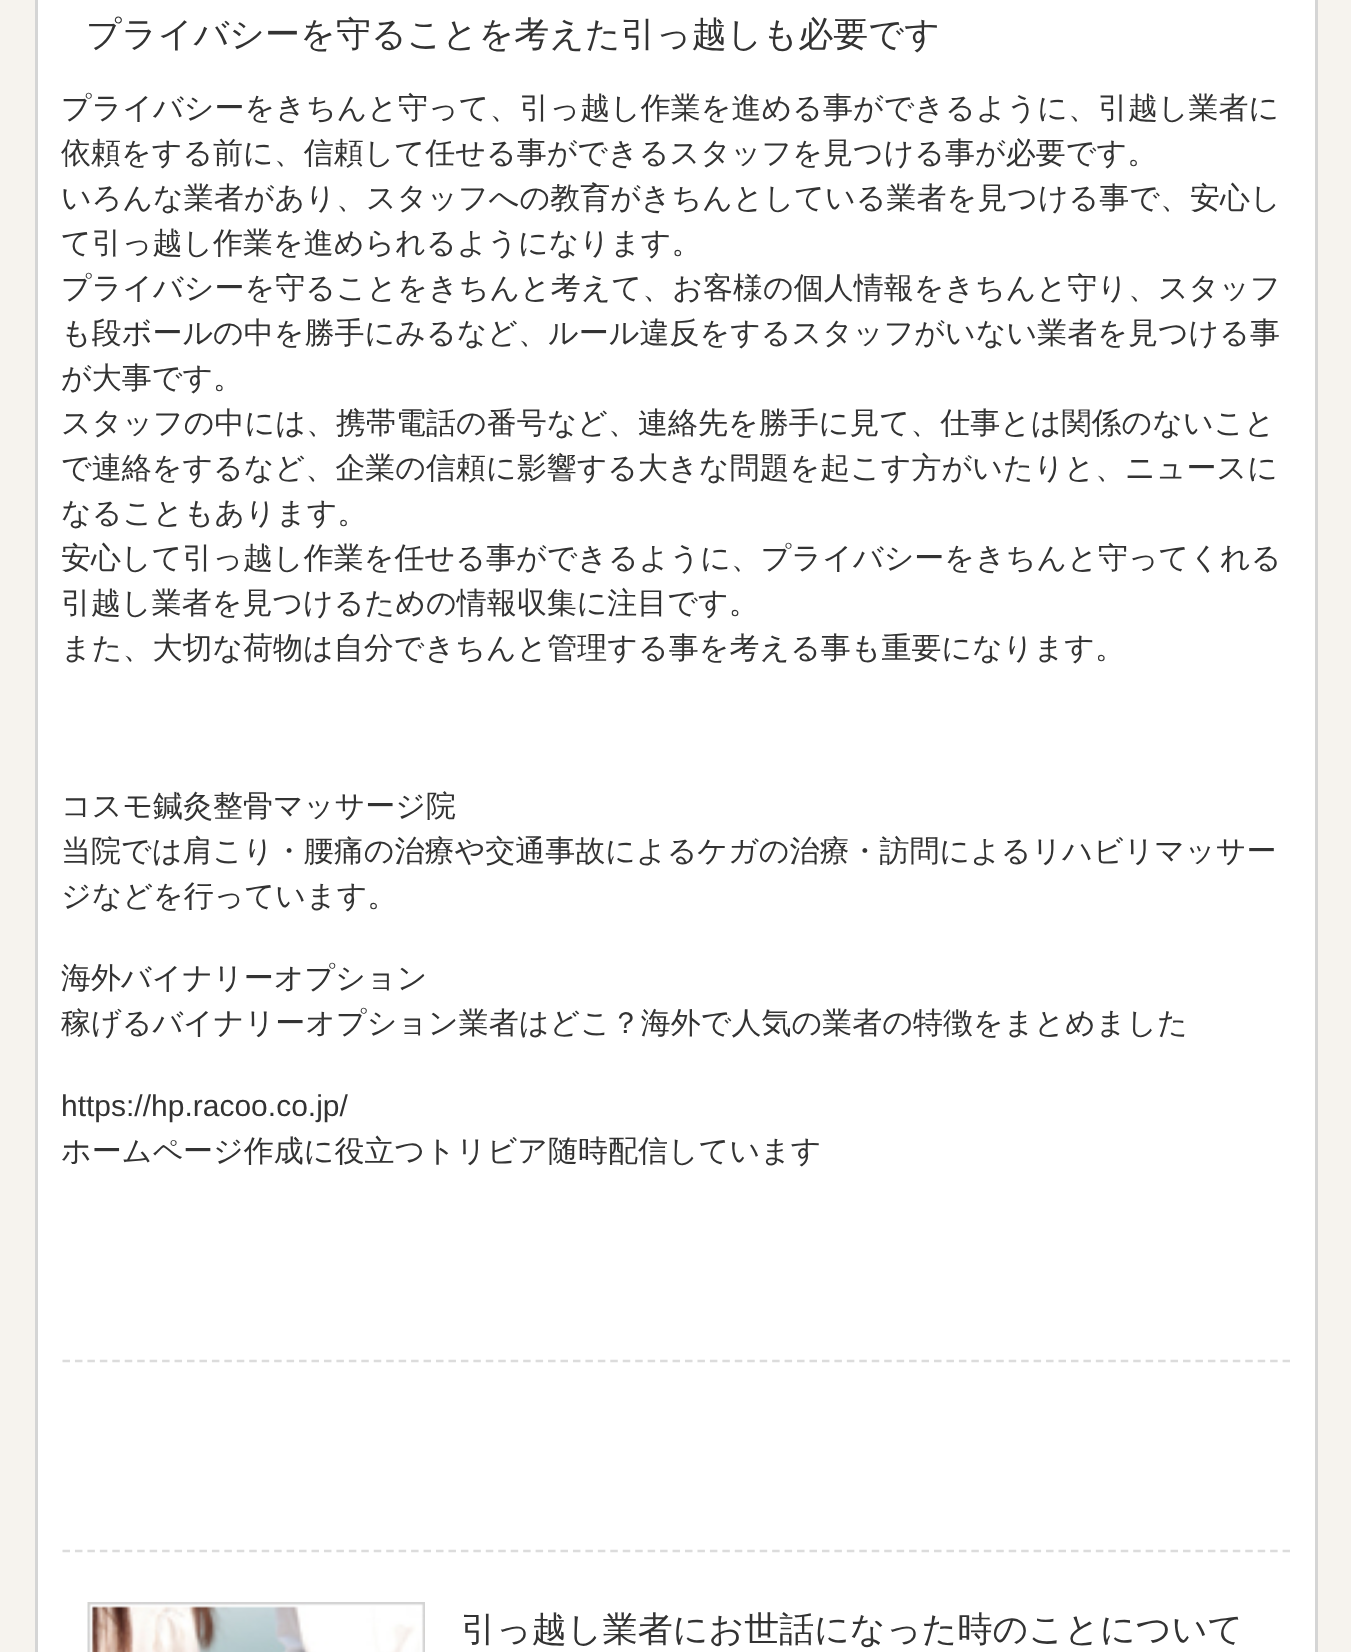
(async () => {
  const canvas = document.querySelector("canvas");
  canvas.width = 1351;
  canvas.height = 1652;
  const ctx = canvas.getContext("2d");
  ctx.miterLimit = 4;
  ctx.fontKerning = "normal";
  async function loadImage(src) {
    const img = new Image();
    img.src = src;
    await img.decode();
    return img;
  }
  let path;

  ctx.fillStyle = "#f6f3ee";
  ctx.fillRect(0, 0, 1351, 1652);
  ctx.fillStyle = "#ffffff";
  ctx.beginPath();
  ctx.rect(36.5, -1.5, 1280, 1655);
  ctx.fill();
  ctx.strokeStyle = "#d5d5d5";
  ctx.lineWidth = 3;
  ctx.stroke();
  path = new Path2D("M62.5 1361H1290");
  ctx.strokeStyle = "#dcdcdc";
  ctx.lineWidth = 2.5;
  ctx.setLineDash([7.5, 4.95]);
  ctx.stroke(path);
  path = new Path2D("M62.5 1551H1290");
  ctx.stroke(path);
  ctx.drawImage(await loadImage("img/1.png"), 87, 1602, 338, 50);
  ctx.font = "500 35px WenQuanYi Zen Hei";
  ctx.fillStyle = "#333333";
  ctx.fillText("プライバシーを守ることを考えた引っ越しも必要です", 86, 46);
  ctx.font = "500 30px WenQuanYi Zen Hei";
  for (const [text, x, y] of [
    ["プライバシーをきちんと守って、引っ越し作業を進める事ができるように、引越し業者に", 61, 118],
    ["依頼をする前に、信頼して任せる事ができるスタッフを見つける事が必要です。", 61, 163],
    ["いろんな業者があり、スタッフへの教育がきちんとしている業者を見つける事で、安心し", 61, 208],
    ["て引っ越し作業を進められるようになります。", 61, 253],
    ["プライバシーを守ることをきちんと考えて、お客様の個人情報をきちんと守り、スタッフ", 61, 298],
    ["も段ボールの中を勝手にみるなど、ルール違反をするスタッフがいない業者を見つける事", 61, 343],
    ["が大事です。", 61, 388],
    ["スタッフの中には、携帯電話の番号など、連絡先を勝手に見て、仕事とは関係のないこと", 61, 433],
    ["で連絡をするなど、企業の信頼に影響する大きな問題を起こす方がいたりと、ニュースに", 61, 478],
    ["なることもあります。", 61, 523],
    ["安心して引っ越し作業を任せる事ができるように、プライバシーをきちんと守ってくれる", 61, 568],
    ["引越し業者を見つけるための情報収集に注目です。", 61, 613],
    ["また、大切な荷物は自分できちんと管理する事を考える事も重要になります。", 61, 658],
    ["コスモ鍼灸整骨マッサージ院", 61, 816],
    ["当院では肩こり・腰痛の治療や交通事故によるケガの治療・訪問によるリハビリマッサー", 61, 861],
    ["ジなどを行っています。", 61, 906],
    ["海外バイナリーオプション", 61, 988],
    ["稼げるバイナリーオプション業者はどこ？海外で人気の業者の特徴をまとめました", 61, 1033],
  ]) {
    ctx.fillText(text, x, y);
  }
  ctx.font = "30px Liberation Sans";
  ctx.fillText("https://hp.racoo.co.jp/", 61, 1116);
  ctx.font = "500 30px WenQuanYi Zen Hei";
  ctx.fillText("ホームページ作成に役立つトリビア随時配信しています", 61, 1161);
  ctx.font = "500 35px WenQuanYi Zen Hei";
  ctx.fillText("引っ越し業者にお世話になった時のことについて", 461, 1641);
})();
